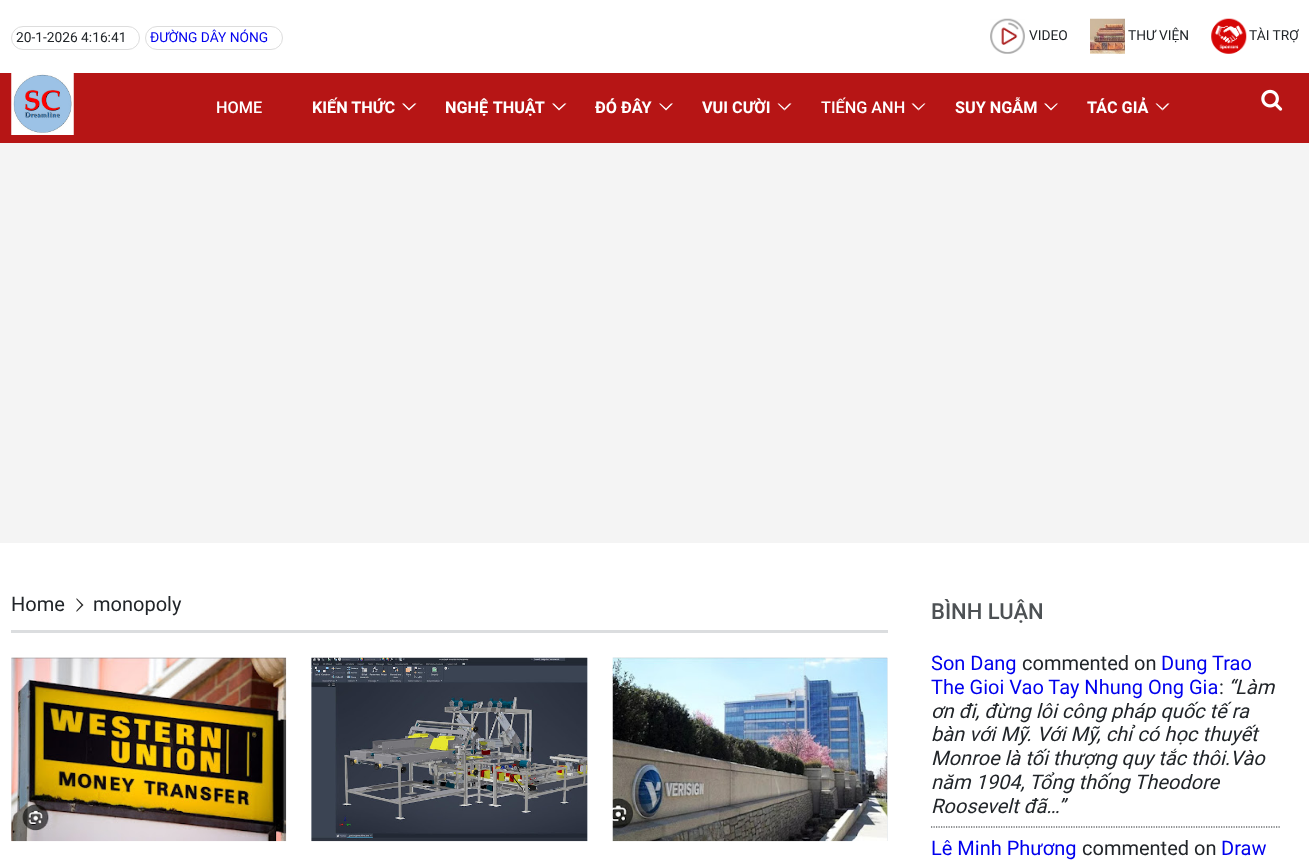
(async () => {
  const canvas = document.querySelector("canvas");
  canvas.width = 1309;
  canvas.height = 861;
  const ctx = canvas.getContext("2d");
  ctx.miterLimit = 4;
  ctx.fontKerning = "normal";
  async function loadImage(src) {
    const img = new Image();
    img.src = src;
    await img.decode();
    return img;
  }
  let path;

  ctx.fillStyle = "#ffffff";
  ctx.fillRect(0, 0, 1309, 861);
  ctx.beginPath();
  ctx.roundRect(11.5, 26.5, 128, 23, 11.5);
  ctx.strokeStyle = "#dddddd";
  ctx.stroke();
  ctx.beginPath();
  ctx.roundRect(145.5, 26.5, 137, 23, 11.5);
  ctx.stroke();
  ctx.drawImage(await loadImage("img/1.png"), 990, 18, 35, 36);
  ctx.drawImage(await loadImage("img/2.png"), 1090, 18, 35, 36);
  ctx.drawImage(await loadImage("img/3.png"), 1211, 18, 36, 36);
  ctx.fillStyle = "#b61515";
  ctx.fillRect(0, 73, 1309, 70);
  ctx.drawImage(await loadImage("img/4.png"), 11, 73, 63, 62);
  ctx.fillStyle = "#ffffff";
  path = new Path2D("M416.5 103.5L409 110.5V108.5L414.5 103.5ZM409 110.5L402 103.5H404L409 108.5Z");
  ctx.fill(path);
  path = new Path2D("M566.5 103.5L559 110.5V108.5L564.5 103.5ZM559 110.5L552 103.5H554L559 108.5Z");
  ctx.fill(path);
  path = new Path2D("M673 103.5L666 110.5V108.5L671 103.5ZM666 110.5L659 103.5H660.5L666 108.5Z");
  ctx.fill(path);
  path = new Path2D("M791.5 103.5L784.5 110.5V108.5L789.5 103.5Z");
  ctx.fill(path);
  path = new Path2D("M784.5 110.5L777.5 103.5H779L784.5 108.5Z");
  ctx.fill(path);
  path = new Path2D("M925.5 103.5L918.5 110.5V108.5L924 103.5Z");
  ctx.fill(path);
  path = new Path2D("M918.5 110.5L911.5 103.5H913.5L918.5 108.5Z");
  ctx.fill(path);
  path = new Path2D("M1058 103.5L1051 110.5V108.5L1056.5 103.5ZM1051 110.5L1044 103.5H1046L1051 108.5Z");
  ctx.fill(path);
  path = new Path2D("M1169.5 103.5L1162.5 110.5V108.5L1167.5 103.5Z");
  ctx.fill(path);
  path = new Path2D("M1162.5 110.5L1155.5 103.5H1157L1162.5 108.5Z");
  ctx.fill(path);
  ctx.drawImage(await loadImage("img/5.png"), 1261, 89, 22, 22);
  ctx.fillStyle = "#f4f4f4";
  ctx.fillRect(0, 143, 1309, 400);
  ctx.fillStyle = "#dbdddf";
  ctx.fillRect(11, 630, 877, 3);
  ctx.fillStyle = "#2d2d2d";
  path = new Path2D("M76.5 598L83.5 605H81.5L76.5 599.5ZM83.5 605L76.5 612V610.5L81.5 605Z");
  ctx.fill(path);
  ctx.fillStyle = "#e9ecef";
  ctx.fillRect(11, 658, 1, 183);
  ctx.drawImage(await loadImage("img/6.png"), 11, 657, 276, 185);
  ctx.fillRect(311, 658, 277, 183);
  ctx.drawImage(await loadImage("img/7.png"), 311, 657, 277, 185);
  ctx.fillRect(887, 658, 1, 183);
  ctx.drawImage(await loadImage("img/8.png"), 612, 657, 276, 185);
  path = new Path2D("M931 827H1280");
  ctx.strokeStyle = "#212529";
  ctx.lineWidth = 1.2;
  ctx.setLineDash([1.25, 1.25]);
  ctx.stroke(path);
  ctx.font = "13.75px Roboto";
  ctx.fillStyle = "#212529";
  ctx.fillText("20-1-2026 4:16:41", 16, 42);
  ctx.fillStyle = "#0000ee";
  ctx.fillText("ĐƯỜNG DÂY NÓNG", 150, 42);
  ctx.fillStyle = "#212529";
  for (const [text, x, y] of [
    ["VIDEO", 1029, 40],
    ["THƯ VIỆN", 1128, 40],
    ["TÀI TRỢ", 1249, 40],
  ]) {
    ctx.fillText(text, x, y);
  }
  ctx.font = "500 16.25px Roboto";
  ctx.fillStyle = "#ffffff";
  ctx.fillText("HOME", 216, 113);
  ctx.font = "bold 16.25px Roboto";
  ctx.fillText("KIẾN THỨC", 312, 113);
  ctx.wordSpacing = "1px";
  ctx.fillText("NGHỆ THUẬT", 445, 113);
  ctx.wordSpacing = "0px";
  ctx.fillText("ĐÓ ĐÂY", 595, 113);
  ctx.fillText("VUI CƯỜI", 702, 113);
  ctx.font = "500 16.25px Roboto";
  ctx.fillText("TIẾNG ANH", 821, 113);
  ctx.font = "bold 16.25px Roboto";
  ctx.fillText("SUY NGẪM", 955, 113);
  ctx.fillText("TÁC GIẢ", 1087, 113);
  ctx.font = "20px Roboto";
  ctx.fillStyle = "#212529";
  ctx.fillText("Home", 11, 611);
  ctx.fillText("monopoly", 93, 611);
  ctx.font = "500 22px Roboto";
  ctx.fillStyle = "#4d5154";
  ctx.fillText("BÌNH LUẬN", 931, 619);
  ctx.font = "20px Roboto";
  ctx.fillStyle = "#0000ee";
  ctx.fillText("Son Dang", 931, 670);
  ctx.fillStyle = "#212529";
  ctx.fillText("commented on", 1022, 670);
  ctx.fillStyle = "#0000ee";
  ctx.fillText("Dung Trao", 1161, 670);
  ctx.fillText("The Gioi Vao Tay Nhung Ong Gia", 931, 694);
  ctx.fillStyle = "#212529";
  ctx.fillText(":", 1219, 694);
  ctx.font = "italic 20px Roboto";
  ctx.fillText("“Làm", 1228, 694);
  ctx.fillText("ơn đi, đừng lôi công pháp quốc tế ra", 931, 718);
  ctx.wordSpacing = "0.25px";
  ctx.fillText("bàn với Mỹ. Với Mỹ, chỉ có học thuyết", 931, 741);
  ctx.wordSpacing = "0px";
  for (const [text, x, y] of [
    ["Monroe là tối thượng quy tắc thôi.Vào", 931, 765],
    ["năm 1904, Tổng thống Theodore", 931, 789],
    ["Roosevelt đã…”", 931, 813],
  ]) {
    ctx.fillText(text, x, y);
  }
  ctx.font = "20px Roboto";
  ctx.fillStyle = "#0000ee";
  ctx.fillText("Lê Minh Phương", 931, 855);
  ctx.fillStyle = "#212529";
  ctx.fillText("commented on", 1082, 855);
  ctx.fillStyle = "#0000ee";
  ctx.fillText("Draw", 1221, 855);
})();
